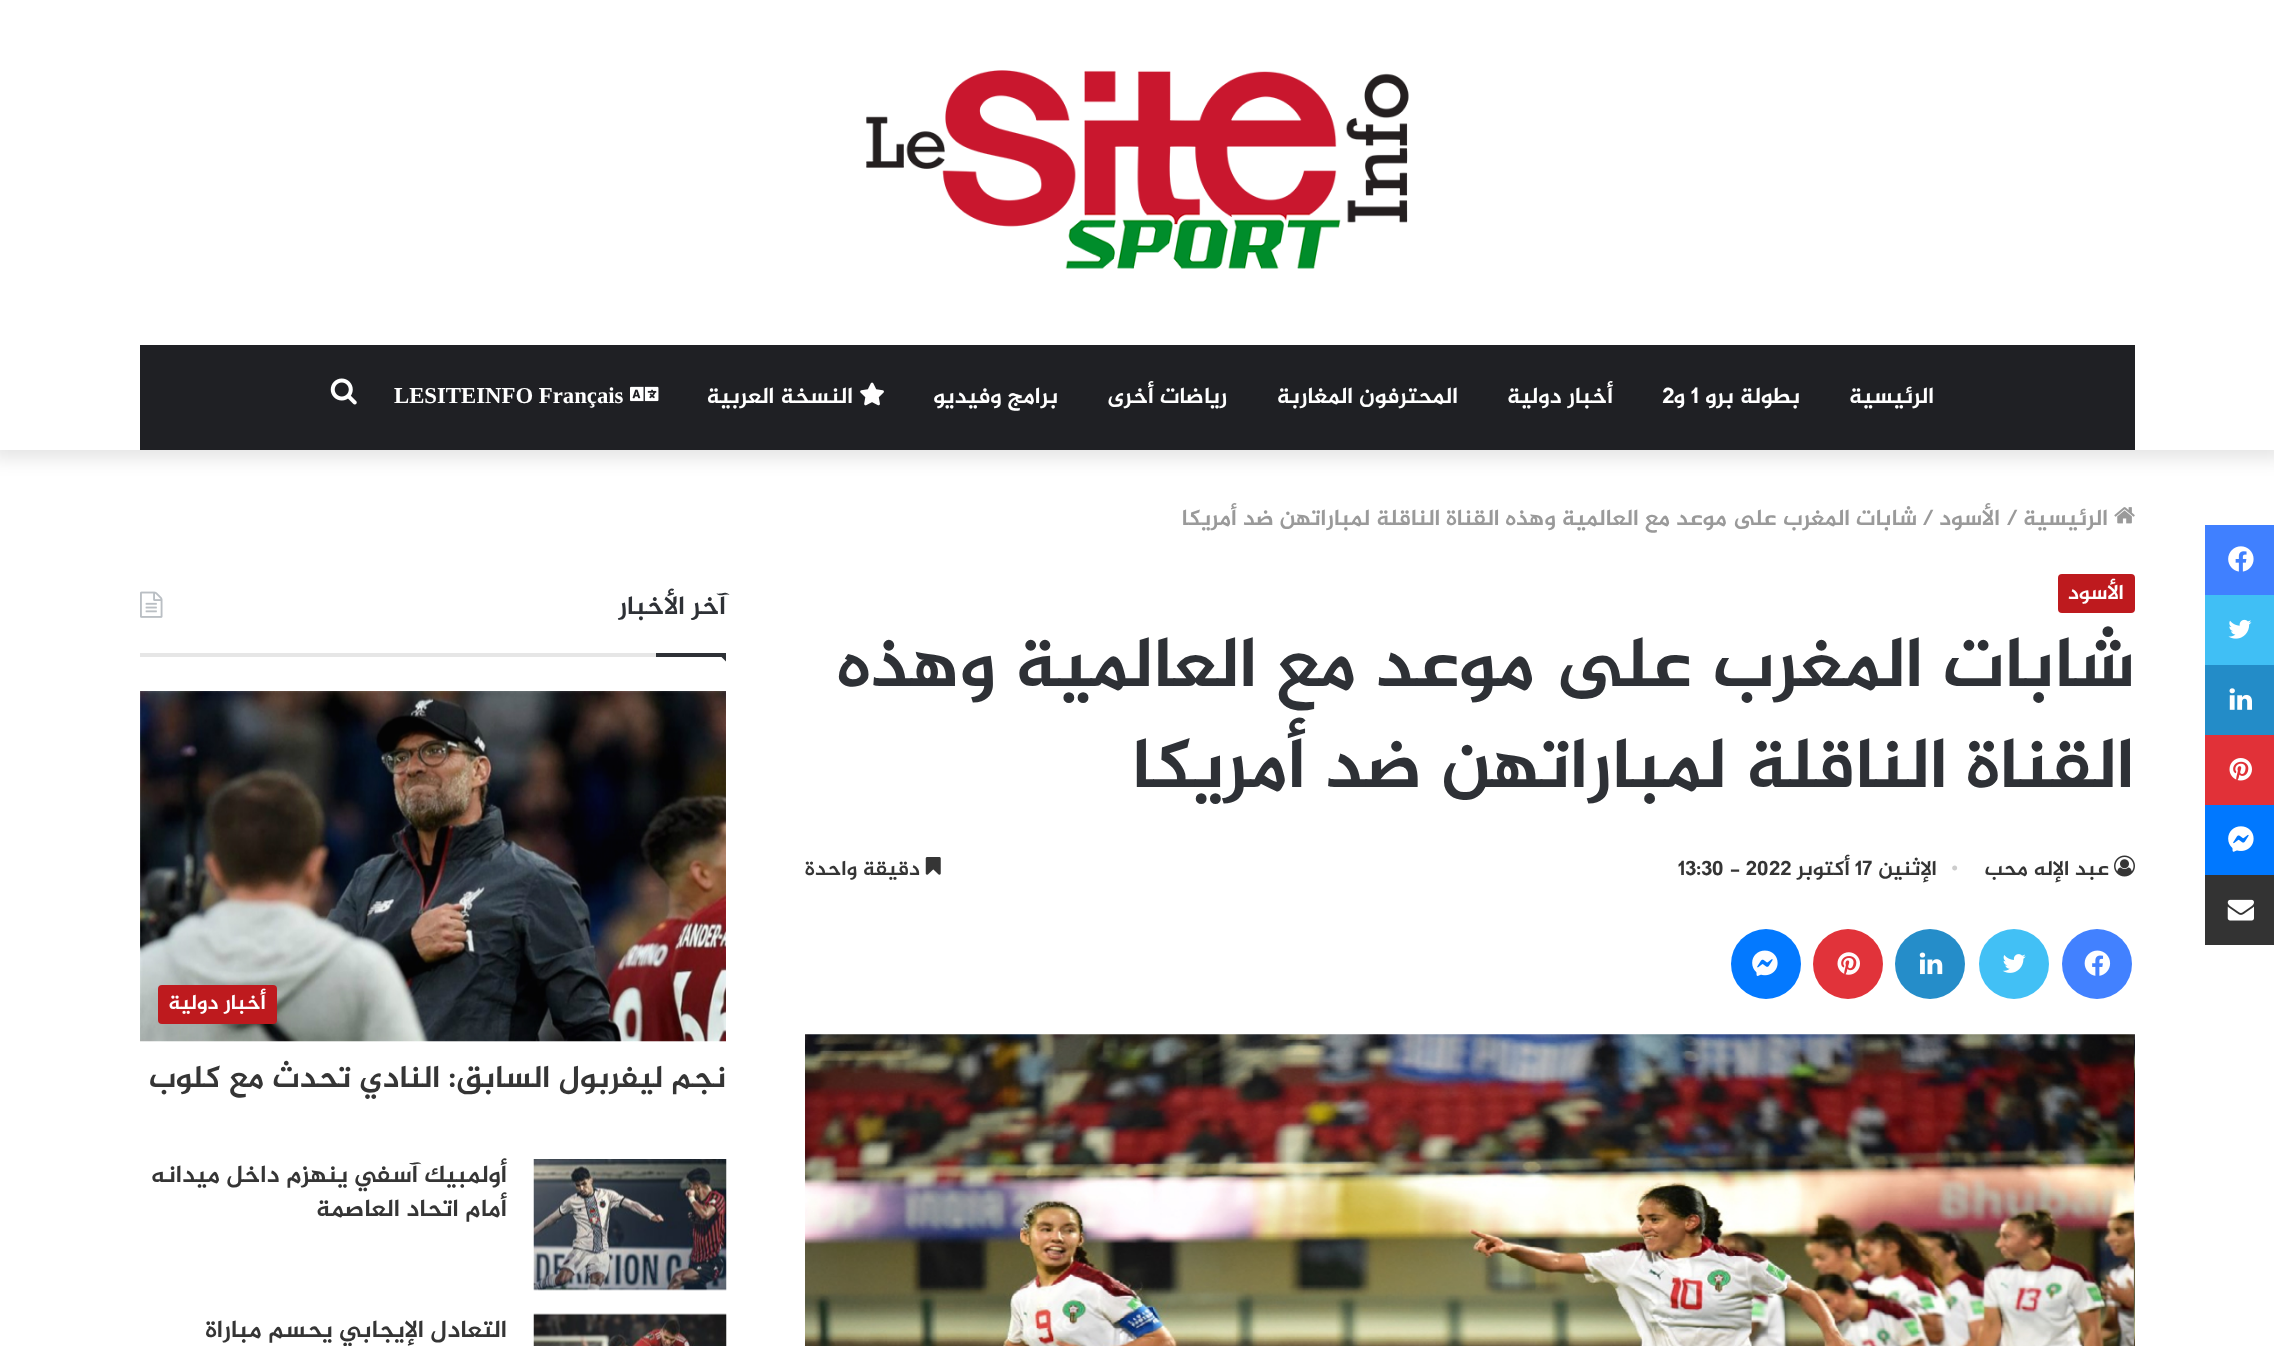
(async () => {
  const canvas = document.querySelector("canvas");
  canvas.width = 2274;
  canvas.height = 1346;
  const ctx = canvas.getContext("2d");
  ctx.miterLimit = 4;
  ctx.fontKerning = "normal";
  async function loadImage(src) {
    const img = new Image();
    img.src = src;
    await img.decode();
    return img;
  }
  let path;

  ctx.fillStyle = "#ffffff";
  ctx.fillRect(0, 0, 2274, 1346);
  ctx.fillStyle = "rgba(0, 0, 0, 0.1)";
  ctx.filter = "blur(9px)";
  ctx.beginPath();
  ctx.rect(-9, -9, 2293, 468);
  ctx.fill();
  ctx.filter = "none";
  ctx.fillStyle = "#ffffff";
  ctx.fillRect(0, 0, 2274, 450);
  ctx.drawImage(await loadImage("img/1.png"), 866, 70, 543, 199);
  ctx.fillStyle = "#1f2024";
  ctx.fillRect(140, 345, 1995, 105);
  ctx.drawImage(await loadImage("img/2.png"), 860, 382, 24, 24);
  ctx.drawImage(await loadImage("img/3.png"), 630, 386, 29, 16);
  ctx.drawImage(await loadImage("img/4.png"), 330, 378, 27, 27);
  ctx.fillStyle = "#4080ff";
  ctx.fillRect(2205, 525, 69, 70);
  ctx.drawImage(await loadImage("img/5.png"), 2228, 546, 26, 26);
  ctx.fillStyle = "#40bff5";
  ctx.fillRect(2205, 595, 69, 70);
  ctx.drawImage(await loadImage("img/6.png"), 2228, 619, 24, 20);
  ctx.fillStyle = "#238cc8";
  ctx.fillRect(2205, 665, 69, 70);
  ctx.drawImage(await loadImage("img/7.png"), 2229, 688, 23, 22);
  ctx.fillStyle = "#e13138";
  ctx.fillRect(2205, 735, 69, 70);
  ctx.drawImage(await loadImage("img/8.png"), 2229, 758, 23, 23);
  ctx.fillStyle = "#0078ff";
  ctx.fillRect(2205, 805, 69, 70);
  ctx.drawImage(await loadImage("img/9.png"), 2228, 826, 26, 26);
  ctx.fillStyle = "#333333";
  ctx.fillRect(2205, 875, 69, 70);
  ctx.drawImage(await loadImage("img/10.png"), 2227, 899, 27, 22);
  ctx.drawImage(await loadImage("img/11.png"), 2114, 507, 21, 17);
  ctx.fillStyle = "#be1a1e";
  ctx.beginPath();
  ctx.roundRect(2058, 574, 77, 39, 4);
  ctx.fill();
  ctx.drawImage(await loadImage("img/12.png"), 2114, 855, 21, 22);
  ctx.drawImage(await loadImage("img/13.png"), 925, 857, 16, 18);
  ctx.fillStyle = "#4281ff";
  ctx.beginPath();
  ctx.arc(2097, 964, 35, 0, Math.PI * 2);
  ctx.fill();
  ctx.drawImage(await loadImage("img/14.png"), 2084, 950, 27, 26);
  ctx.fillStyle = "#42c0f5";
  ctx.beginPath();
  ctx.arc(2014, 964, 35, 0, Math.PI * 2);
  ctx.fill();
  ctx.drawImage(await loadImage("img/15.png"), 2002, 954, 24, 19);
  ctx.fillStyle = "#258dc9";
  ctx.beginPath();
  ctx.arc(1930, 964, 35, 0, Math.PI * 2);
  ctx.fill();
  ctx.drawImage(await loadImage("img/16.png"), 1919, 952, 24, 23);
  ctx.fillStyle = "#e1333a";
  ctx.beginPath();
  ctx.arc(1848, 964, 35, 0, Math.PI * 2);
  ctx.fill();
  ctx.drawImage(await loadImage("img/17.png"), 1837, 952, 23, 23);
  ctx.fillStyle = "#0379ff";
  ctx.beginPath();
  ctx.arc(1766, 964, 35, 0, Math.PI * 2);
  ctx.fill();
  ctx.drawImage(await loadImage("img/18.png"), 1752, 950, 26, 26);
  ctx.drawImage(await loadImage("img/19.png"), 805, 1034, 1330, 312);
  ctx.fillStyle = "#e6e6e6";
  ctx.fillRect(140, 653, 516, 4);
  ctx.drawImage(await loadImage("img/20.png"), 140, 591, 23, 27);
  ctx.fillStyle = "#2e3136";
  path = new Path2D("M717.5 653H726V661.5Z");
  ctx.fill(path);
  ctx.fillRect(656, 653, 70, 4);
  ctx.drawImage(await loadImage("img/21.png"), 140, 691, 586, 351);
  ctx.fillStyle = "#be1a1e";
  ctx.beginPath();
  ctx.roundRect(158, 985, 119, 39, 4);
  ctx.fill();
  ctx.drawImage(await loadImage("img/22.png"), 533, 1159, 194, 132);
  ctx.drawImage(await loadImage("img/23.png"), 533, 1313, 194, 33);
  ctx.direction = "rtl";
  ctx.font = "bold 22.75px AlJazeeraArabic";
  ctx.fillStyle = "#ffffff";
  ctx.fillText("الرئيسية", 1934, 403);
  ctx.fillText("بطولة برو", 1800, 403);
  ctx.direction = "ltr";
  ctx.fillText("1", 1691, 403);
  ctx.direction = "rtl";
  ctx.fillText("و", 1685, 403);
  ctx.direction = "ltr";
  ctx.fillText("2", 1662, 403);
  ctx.direction = "rtl";
  for (const [text, x, y] of [
    ["أخبار دولية", 1613, 403],
    ["المحترفون المغاربة", 1458, 403],
    ["رياضات أخرى", 1227, 403],
    ["برامج وفيديو", 1058, 403],
    ["النسخة العربية", 853, 403],
  ]) {
    ctx.fillText(text, x, y);
  }
  ctx.direction = "ltr";
  ctx.font = "bold 22.75px Liberation Serif";
  ctx.fillText("LESITEINFO Français", 394, 403);
  ctx.direction = "rtl";
  ctx.font = "bold 22.75px AlJazeeraArabic";
  ctx.fillStyle = "#9a9a9a";
  ctx.fillText("الرئيسية", 2108, 525);
  ctx.direction = "ltr";
  ctx.fillText("/", 2006, 525);
  ctx.direction = "rtl";
  ctx.fillText("الأسود", 2000, 525);
  ctx.direction = "ltr";
  ctx.fillText("/", 1922, 525);
  ctx.direction = "rtl";
  ctx.fillText("شابات المغرب على موعد مع العالمية وهذه القناة الناقلة لمباراتهن ضد أمريكا", 1917, 525);
  ctx.font = "bold 21px AlJazeeraArabic";
  ctx.fillStyle = "#ffffff";
  ctx.fillText("الأسود", 2124, 599);
  ctx.font = "bold 71.75px AlJazeeraArabic";
  ctx.fillStyle = "#2e3136";
  ctx.fillText("شابات المغرب على موعد مع العالمية وهذه", 2135, 686);
  ctx.fillText("القناة الناقلة لمباراتهن ضد أمريكا", 2135, 787);
  ctx.font = "bold 21px AlJazeeraArabic";
  ctx.fillStyle = "#353535";
  ctx.fillText("عبد الإله محب", 2109, 875);
  ctx.direction = "ltr";
  ctx.font = "21px Liberation Serif";
  ctx.fillStyle = "#cdcdcd";
  ctx.fillText("•", 1951, 875);
  ctx.direction = "rtl";
  ctx.font = "bold 21px AlJazeeraArabic";
  ctx.fillStyle = "#353535";
  ctx.fillText("الإثنين", 1937, 875);
  ctx.direction = "ltr";
  ctx.fillText("17", 1855, 875);
  ctx.direction = "rtl";
  ctx.fillText("أكتوبر", 1850, 875);
  ctx.direction = "ltr";
  ctx.fillText("13:30 - 2022", 1678, 875);
  ctx.direction = "rtl";
  ctx.fillText("دقيقة واحدة", 920, 875);
  ctx.font = "bold 26.25px AlJazeeraArabic";
  ctx.fillStyle = "#2e3136";
  ctx.fillText("آخر الأخبار", 726, 614);
  ctx.font = "bold 21px AlJazeeraArabic";
  ctx.fillStyle = "#ffffff";
  ctx.fillText("أخبار دولية", 266, 1009);
  ctx.font = "bold 31.5px AlJazeeraArabic";
  ctx.fillStyle = "#353535";
  ctx.fillText("نجم ليفربول السابق: النادي تحدث مع كلوب", 726, 1087);
  ctx.font = "bold 24.5px AlJazeeraArabic";
  for (const [text, x, y] of [
    ["أولمبيك آسفي ينهزم داخل ميدانه", 507, 1182],
    ["أمام اتحاد العاصمة", 507, 1216],
    ["التعادل الإيجابي يحسم مباراة", 507, 1337],
  ]) {
    ctx.fillText(text, x, y);
  }
})();
